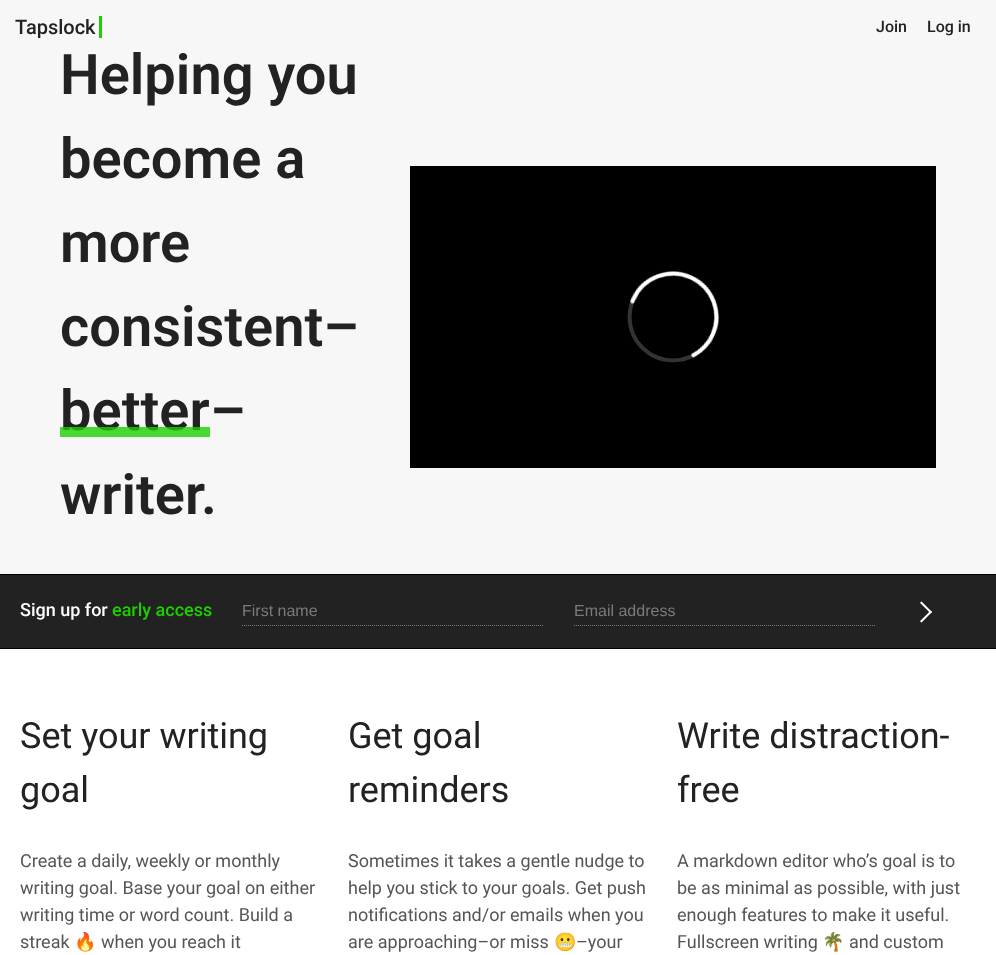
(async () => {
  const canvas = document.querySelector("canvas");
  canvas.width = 996;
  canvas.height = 955;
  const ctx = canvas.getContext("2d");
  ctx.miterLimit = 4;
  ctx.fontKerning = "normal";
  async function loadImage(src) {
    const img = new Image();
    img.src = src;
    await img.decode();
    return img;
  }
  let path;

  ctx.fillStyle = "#ffffff";
  ctx.fillRect(0, 0, 996, 955);
  ctx.fillStyle = "#f7f7f7";
  ctx.fillRect(0, 0, 996, 574);
  ctx.fillStyle = "#1dce00";
  ctx.fillRect(99, 16, 3, 22);
  ctx.drawImage(await loadImage("img/1.png"), 410, 166, 526, 302);
  for (const [x, y, w, h, color] of [
    [0, 575, 996, 73, "#222222"],
    [0, 574, 996, 1, "#000000"],
    [0, 648, 996, 1, "#000000"],
  ]) {
    ctx.fillStyle = color;
    ctx.fillRect(x, y, w, h);
  }
  path = new Path2D("M242 625.5H544");
  ctx.strokeStyle = "#7a7a7a";
  ctx.setLineDash([1, 1]);
  ctx.stroke(path);
  path = new Path2D("M574 625.5H876");
  ctx.stroke(path);
  ctx.drawImage(await loadImage("img/2.png"), 920, 601, 12, 22);
  ctx.font = "500 20px Roboto";
  ctx.fillStyle = "#222222";
  ctx.fillText("Tapslock", 15, 34);
  ctx.font = "500 16px Roboto";
  ctx.fillText("Join", 876, 32);
  ctx.fillText("Log in", 927, 32);
  ctx.font = "600 56px Roboto";
  for (const [text, x, y] of [
    ["Helping you", 60, 94],
    ["become a", 60, 178],
    ["more", 60, 262],
    ["consistent–", 60, 346],
    ["better", 60, 430],
  ]) {
    ctx.fillText(text, x, y);
  }
  ctx.fillStyle = "rgba(29, 206, 0, 0.8)";
  ctx.fillRect(60, 427, 150, 10);
  ctx.fillStyle = "#222222";
  ctx.fillText("–", 210, 430);
  ctx.fillText("writer.", 60, 514);
  ctx.font = "500 18px Roboto";
  ctx.fillStyle = "#ffffff";
  ctx.fillText("Sign up for", 20, 616);
  ctx.fillStyle = "#1dce00";
  ctx.fillText("early access", 112, 616);
  ctx.font = "16px Liberation Sans";
  ctx.fillStyle = "#7a7a7a";
  ctx.fillText("First name", 242, 616);
  ctx.fillText("Email address", 574, 616);
  ctx.font = "36px Roboto";
  ctx.fillStyle = "#222222";
  ctx.fillText("Set your writing", 20, 748);
  ctx.fillText("goal", 20, 802);
  ctx.font = "18px Roboto";
  ctx.fillStyle = "#555555";
  for (const [text, x, y] of [
    ["Create a daily, weekly or monthly", 20, 867],
    ["writing goal. Base your goal on either", 20, 894],
    ["writing time or word count. Build a", 20, 921],
    ["streak", 20, 948],
  ]) {
    ctx.fillText(text, x, y);
  }
  ctx.font = "18px Noto Color Emoji";
  ctx.fillText("🔥", 74, 948);
  ctx.font = "18px Roboto";
  ctx.fillText("when you reach it", 101, 948);
  ctx.font = "36px Roboto";
  ctx.fillStyle = "#222222";
  ctx.fillText("Get goal", 348, 748);
  ctx.fillText("reminders", 348, 802);
  ctx.font = "18px Roboto";
  ctx.fillStyle = "#555555";
  for (const [text, x, y] of [
    ["Sometimes it takes a gentle nudge to", 348, 867],
    ["help you stick to your goals. Get push", 348, 894],
    ["notifications and/or emails when you", 348, 921],
    ["are approaching–or miss", 348, 948],
  ]) {
    ctx.fillText(text, x, y);
  }
  ctx.font = "18px Noto Color Emoji";
  ctx.fillText("😬", 554, 948);
  ctx.font = "18px Roboto";
  ctx.fillText("–your", 576, 948);
  ctx.font = "36px Roboto";
  ctx.fillStyle = "#222222";
  ctx.fillText("Write distraction-", 677, 748);
  ctx.fillText("free", 677, 802);
  ctx.font = "18px Roboto";
  ctx.fillStyle = "#555555";
  for (const [text, x, y] of [
    ["A markdown editor who’s goal is to", 677, 867],
    ["be as minimal as possible, with just", 677, 894],
    ["enough features to make it useful.", 677, 921],
    ["Fullscreen writing", 677, 948],
  ]) {
    ctx.fillText(text, x, y);
  }
  ctx.font = "18px Noto Color Emoji";
  ctx.fillText("🌴", 822, 948);
  ctx.font = "18px Roboto";
  ctx.fillText("and custom", 849, 948);
})();
